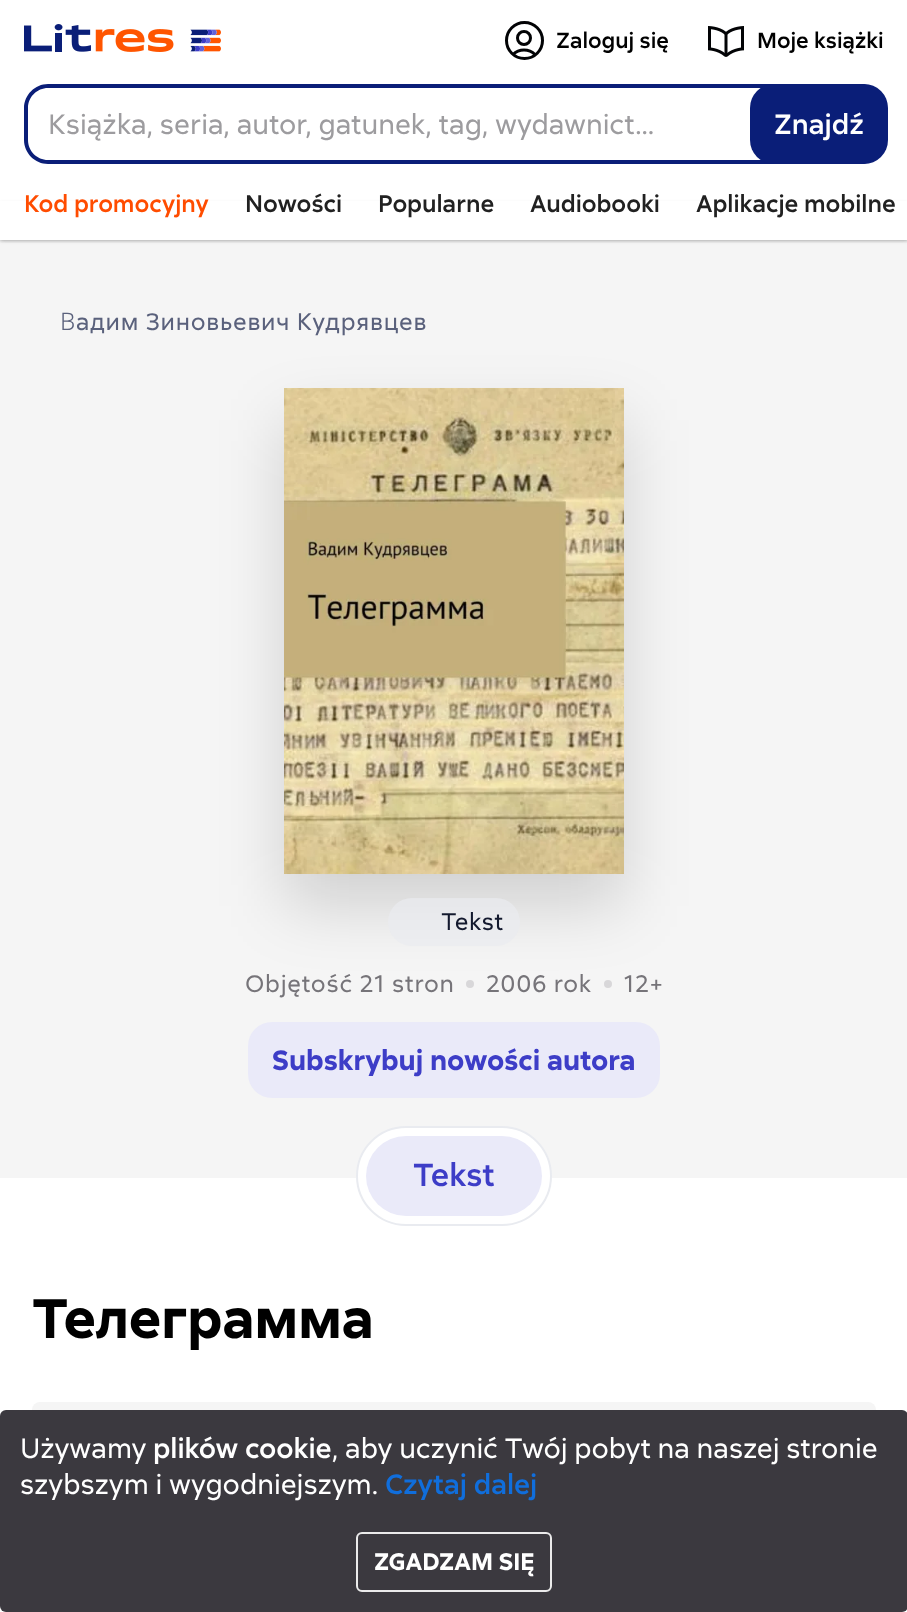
(async () => {
  const canvas = document.querySelector("canvas");
  canvas.width = 907;
  canvas.height = 1612;
  const ctx = canvas.getContext("2d");
  ctx.miterLimit = 4;
  ctx.fontKerning = "normal";
  async function loadImage(src) {
    const img = new Image();
    img.src = src;
    await img.decode();
    return img;
  }
  let path;

  ctx.fillStyle = "#ffffff";
  ctx.fillRect(0, 0, 907, 1612);
  ctx.fillStyle = "#f5f5f5";
  ctx.fillRect(0, 240, 907, 938);
  ctx.save();
  ctx.beginPath();
  ctx.rect(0, 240, 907, 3);
  ctx.clip();
  ctx.fillStyle = "rgba(0, 0, 0, 0.24)";
  ctx.filter = "blur(2px)";
  ctx.beginPath();
  ctx.rect(0, 0, 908, 240);
  ctx.fill();
  ctx.filter = "none";
  ctx.restore();
  ctx.drawImage(await loadImage("img/1.png"), 24, 24, 197, 28);
  ctx.beginPath();
  ctx.arc(524, 38, 6.5, 0, Math.PI * 2);
  ctx.strokeStyle = "#020305";
  ctx.lineWidth = 3;
  ctx.stroke();
  path = new Path2D("M513 54.5C519 48.5 529 48.5 535 54.5");
  ctx.stroke(path);
  ctx.beginPath();
  ctx.arc(524.5, 40.5, 18, 0, Math.PI * 2);
  ctx.stroke();
  ctx.drawImage(await loadImage("img/2.png"), 708, 26, 36, 31);
  ctx.fillStyle = "#0a1e78";
  path = new Path2D("M48 84H860C873 84 884 95 884 108V140C884 153 873 164 860 164H48C35 164 24 153 24 140V108C24 95 35 84 48 84ZM48 88H860C873 88 884 97 884 108V140C884 151 873 160 860 160H48C37 160 28 151 28 140V108C28 97 37 88 48 88Z");
  ctx.fill(path, "evenodd");
  ctx.beginPath();
  ctx.roundRect(750, 84, 138, 80, 24);
  ctx.fill();
  ctx.fillStyle = "rgba(0, 0, 0, 0.24)";
  ctx.filter = "blur(2px)";
  ctx.beginPath();
  ctx.rect(0, 204, 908, 36);
  ctx.fill();
  ctx.filter = "none";
  ctx.fillStyle = "#ffffff";
  ctx.fillRect(0, 201, 907, 39);
  ctx.fillStyle = "#d8d7d9";
  ctx.beginPath();
  ctx.arc(470, 984, 4, 0, Math.PI * 2);
  ctx.fill();
  ctx.beginPath();
  ctx.arc(608, 984, 4, 0, Math.PI * 2);
  ctx.fill();
  ctx.fillStyle = "rgba(0, 0, 0, 0.15)";
  ctx.filter = "blur(32px)";
  ctx.beginPath();
  ctx.rect(284, 420, 340, 486);
  ctx.fill();
  ctx.filter = "none";
  ctx.drawImage(await loadImage("img/3.png"), 284, 388, 340, 486);
  ctx.fillStyle = "rgba(233, 235, 240, 0.7)";
  ctx.beginPath();
  ctx.roundRect(388, 898, 132, 48, 24);
  ctx.fill();
  ctx.fillStyle = "#eaeaf9";
  ctx.beginPath();
  ctx.roundRect(248, 1022, 412, 76, 24);
  ctx.fill();
  ctx.fillStyle = "#ffffff";
  ctx.beginPath();
  ctx.roundRect(357, 1127, 194, 98, 49);
  ctx.fill();
  ctx.strokeStyle = "#e9ebf0";
  ctx.lineWidth = 2;
  ctx.stroke();
  ctx.fillStyle = "#eaeaf9";
  ctx.beginPath();
  ctx.roundRect(366, 1136, 176, 80, 40);
  ctx.fill();
  ctx.fillStyle = "#f5f5f5";
  ctx.beginPath();
  ctx.roundRect(32, 1402, 844, 160, 8);
  ctx.fill();
  ctx.fillStyle = "#3b393f";
  ctx.beginPath();
  ctx.roundRect(0, 1410, 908, 202, 6);
  ctx.fill();
  ctx.beginPath();
  ctx.roundRect(357, 1533, 194, 58, 5);
  ctx.strokeStyle = "#ebebeb";
  ctx.stroke();
  ctx.font = "500 22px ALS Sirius";
  ctx.fillStyle = "#000000";
  ctx.fillText("Zaloguj się", 556, 48);
  ctx.fillText("Moje książki", 757, 48);
  ctx.font = "28px ALS Sirius";
  ctx.fillStyle = "#9d9c9f";
  ctx.fillText("Książka, seria, autor, gatunek, tag, wydawnict…", 48, 134);
  ctx.font = "500 28px ALS Sirius";
  ctx.fillStyle = "#ffffff";
  ctx.fillText("Znajdź", 774, 134);
  ctx.font = "500 24px ALS Sirius";
  ctx.fillStyle = "#ff4c00";
  ctx.fillText("Kod promocyjny", 24, 212);
  ctx.fillStyle = "#212121";
  for (const [text, x, y] of [
    ["Nowości", 245, 212],
    ["Popularne", 378, 212],
    ["Audiobooki", 530, 212],
    ["Aplikacje mobilne", 696, 212],
  ]) {
    ctx.fillText(text, x, y);
  }
  ctx.letterSpacing = "0.8px";
  ctx.font = "300 24px Noto Sans";
  ctx.fillStyle = "#5a617c";
  ctx.fillText("В", 60, 330);
  ctx.font = "24px ALS Sirius";
  ctx.fillText("адим Зиновьевич Кудрявцев", 76, 330);
  ctx.letterSpacing = "0.5px";
  ctx.fillStyle = "#13192e";
  ctx.fillText("Tekst", 441, 930);
  ctx.letterSpacing = "0.8px";
  ctx.fillStyle = "#767479";
  for (const [text, x, y] of [
    ["Objętość 21 stron", 245, 992],
    ["2006 rok", 486, 992],
    ["12+", 624, 992],
  ]) {
    ctx.fillText(text, x, y);
  }
  ctx.letterSpacing = "0px";
  ctx.font = "bold 28px ALS Sirius";
  ctx.fillStyle = "#3d3dc7";
  ctx.fillText("Subskrybuj nowości autora", 272, 1070);
  ctx.font = "500 32px ALS Sirius";
  ctx.fillText("Tekst", 413, 1186);
  ctx.font = "bold 56px ALS Sirius";
  ctx.fillStyle = "#000000";
  ctx.fillText("Телеграмма", 32, 1338);
  ctx.font = "28px ALS Sirius";
  ctx.fillStyle = "#ffffff";
  ctx.fillText("Używamy", 20, 1458);
  ctx.font = "500 28px ALS Sirius";
  ctx.fillText("plików cookie", 153, 1458);
  ctx.font = "28px ALS Sirius";
  ctx.fillText(", aby uczynić Twój pobyt na naszej stronie", 332, 1458);
  ctx.fillText("szybszym i wygodniejszym.", 20, 1494);
  ctx.font = "500 28px ALS Sirius";
  ctx.fillStyle = "#106edc";
  ctx.fillText("Czytaj dalej", 385, 1494);
  ctx.font = "bold 24px ALS Sirius";
  ctx.fillStyle = "#ffffff";
  ctx.fillText("ZGADZAM SIĘ", 374, 1570);
})();
